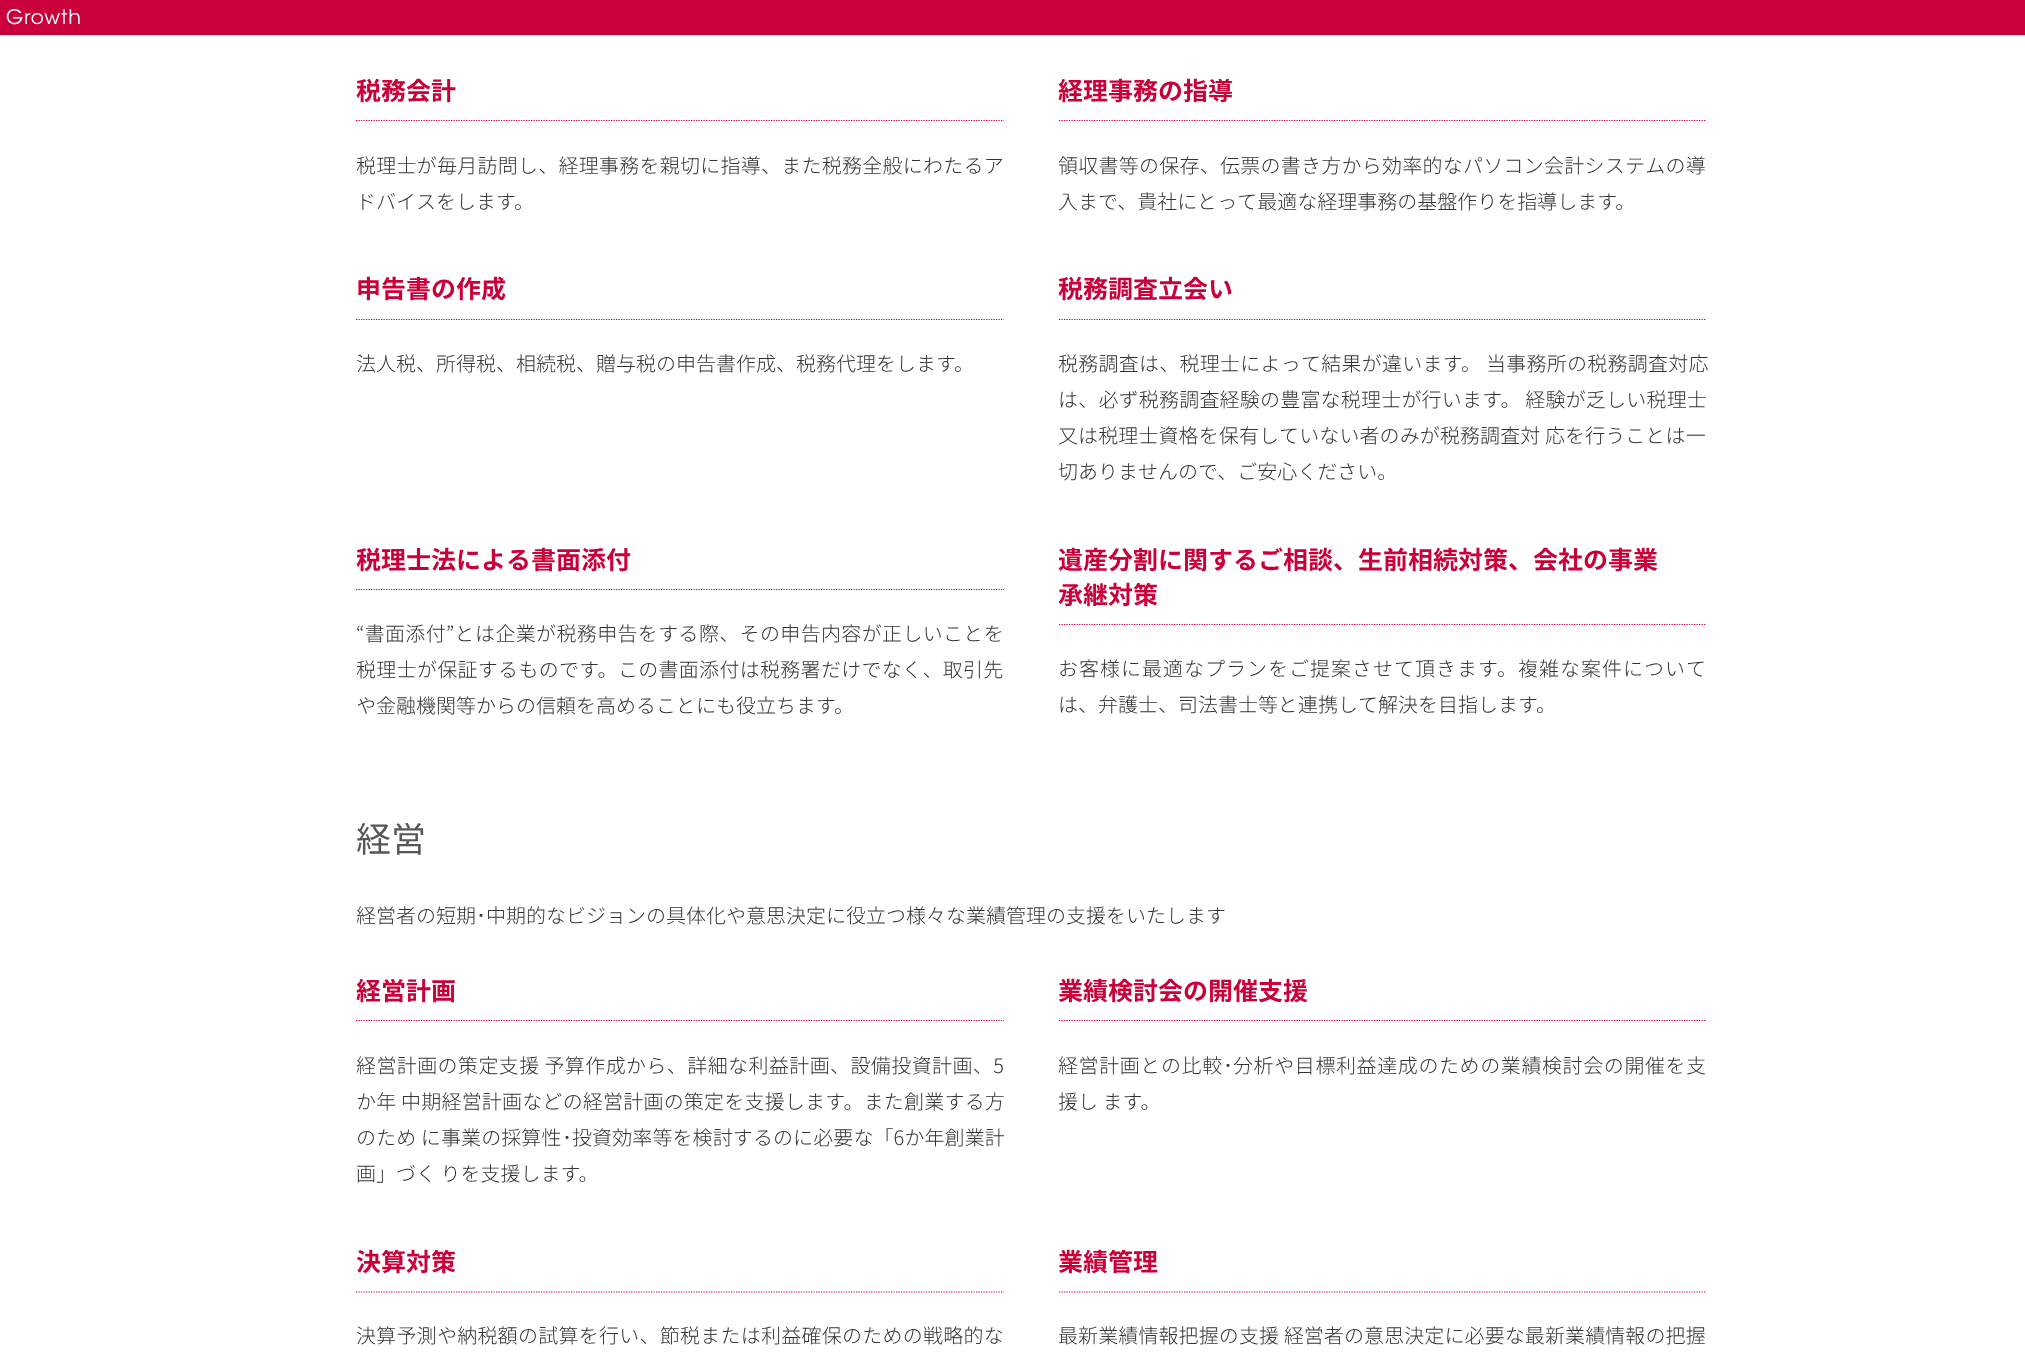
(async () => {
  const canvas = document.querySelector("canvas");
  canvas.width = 2025;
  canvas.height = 1366;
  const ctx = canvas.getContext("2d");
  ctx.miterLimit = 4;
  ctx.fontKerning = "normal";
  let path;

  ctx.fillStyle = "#ffffff";
  ctx.fillRect(0, 0, 2025, 1366);
  ctx.fillStyle = "#c9003a";
  ctx.fillRect(0, 0, 2025, 35);
  path = new Path2D("M356 120.5H1004");
  ctx.strokeStyle = "#c9003a";
  ctx.lineWidth = 1.2;
  ctx.setLineDash([1.25, 1.25]);
  ctx.stroke(path);
  path = new Path2D("M1059 120.5H1706");
  ctx.stroke(path);
  path = new Path2D("M356 319.5H1004");
  ctx.stroke(path);
  path = new Path2D("M1059 319.5H1706");
  ctx.stroke(path);
  path = new Path2D("M356 589.5H1004");
  ctx.stroke(path);
  path = new Path2D("M1059 624.5H1706");
  ctx.stroke(path);
  path = new Path2D("M356 1020.5H1004");
  ctx.stroke(path);
  path = new Path2D("M1059 1020.5H1706");
  ctx.stroke(path);
  path = new Path2D("M356 1292H1004");
  ctx.stroke(path);
  path = new Path2D("M1059 1292H1706");
  ctx.stroke(path);
  ctx.letterSpacing = "1px";
  ctx.font = "300 20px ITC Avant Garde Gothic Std";
  ctx.fillStyle = "#ffffff";
  ctx.fillText("Growth", 6, 24);
  ctx.letterSpacing = "0px";
  ctx.font = "bold 25px Noto Sans JP";
  ctx.fillStyle = "#c9003a";
  ctx.fillText("税務会計", 356, 100);
  ctx.letterSpacing = "0.25px";
  ctx.font = "300 20px Noto Sans JP";
  ctx.fillStyle = "#333333";
  ctx.fillText("税理士が毎月訪問し、経理事務を親切に指導、また税務全般にわたるア", 356, 173);
  ctx.letterSpacing = "0px";
  ctx.fillText("ドバイスをします。", 356, 209);
  ctx.font = "bold 25px Noto Sans JP";
  ctx.fillStyle = "#c9003a";
  ctx.fillText("経理事務の指導", 1058, 100);
  ctx.letterSpacing = "0.25px";
  ctx.font = "300 20px Noto Sans JP";
  ctx.fillStyle = "#333333";
  ctx.fillText("領収書等の保存、伝票の書き方から効率的なパソコン会計システムの導", 1058, 173);
  ctx.letterSpacing = "0px";
  ctx.fillText("入まで、貴社にとって最適な経理事務の基盤作りを指導します。", 1058, 209);
  ctx.font = "bold 25px Noto Sans JP";
  ctx.fillStyle = "#c9003a";
  ctx.fillText("申告書の作成", 356, 298);
  ctx.font = "300 20px Noto Sans JP";
  ctx.fillStyle = "#333333";
  ctx.fillText("法人税、所得税、相続税、贈与税の申告書作成、税務代理をします。", 356, 371);
  ctx.font = "bold 25px Noto Sans JP";
  ctx.fillStyle = "#c9003a";
  ctx.fillText("税務調査立会い", 1058, 298);
  ctx.letterSpacing = "0.25px";
  ctx.font = "300 20px Noto Sans JP";
  ctx.fillStyle = "#333333";
  ctx.fillText("税務調査は、税理士によって結果が違います。 当事務所の税務調査対応", 1058, 371);
  ctx.letterSpacing = "0.2px";
  ctx.fillText("は、必ず税務調査経験の豊富な税理士が行います。 経験が乏しい税理士", 1058, 407);
  ctx.letterSpacing = "0.1px";
  ctx.fillText("又は税理士資格を保有していない者のみが税務調査対 応を行うことは一", 1058, 443);
  ctx.letterSpacing = "0px";
  ctx.fillText("切ありませんので、ご安心ください。", 1058, 479);
  ctx.font = "bold 25px Noto Sans JP";
  ctx.fillStyle = "#c9003a";
  ctx.fillText("税理士法による書面添付", 356, 569);
  ctx.letterSpacing = "0.35px";
  ctx.font = "300 20px Noto Sans JP";
  ctx.fillStyle = "#333333";
  ctx.fillText("“書面添付”とは企業が税務申告をする際、その申告内容が正しいことを", 356, 641);
  ctx.letterSpacing = "0.3px";
  ctx.fillText("税理士が保証するものです。この書面添付は税務署だけでなく、取引先", 356, 677);
  ctx.letterSpacing = "0px";
  ctx.fillText("や金融機関等からの信頼を高めることにも役立ちます。", 356, 713);
  ctx.font = "bold 25px Noto Sans JP";
  ctx.fillStyle = "#c9003a";
  ctx.fillText("遺産分割に関するご相談、生前相続対策、会社の事業", 1058, 569);
  ctx.fillText("承継対策", 1058, 604);
  ctx.letterSpacing = "1px";
  ctx.font = "300 20px Noto Sans JP";
  ctx.fillStyle = "#333333";
  ctx.fillText("お客様に最適なプランをご提案させて頂きます。複雑な案件について", 1058, 676);
  ctx.letterSpacing = "0px";
  ctx.fillText("は、弁護士、司法書士等と連携して解決を目指します。", 1058, 712);
  ctx.font = "35px Noto Sans JP";
  ctx.fillStyle = "#565655";
  ctx.fillText("経営", 356, 852);
  ctx.font = "300 20px Noto Sans JP";
  ctx.fillStyle = "#333333";
  ctx.fillText("経営者の短期", 356, 923);
  ctx.font = "20px IPAPGothic";
  ctx.fillText("･", 476, 923);
  ctx.font = "300 20px Noto Sans JP";
  ctx.fillText("中期的なビジョンの具体化や意思決定に役立つ様々な業績管理の支援をいたします", 486, 923);
  ctx.font = "bold 25px Noto Sans JP";
  ctx.fillStyle = "#c9003a";
  ctx.fillText("経営計画", 356, 1000);
  ctx.letterSpacing = "0.4px";
  ctx.font = "300 20px Noto Sans JP";
  ctx.fillStyle = "#333333";
  ctx.fillText("経営計画の策定支援 予算作成から、詳細な利益計画、設備投資計画、5", 356, 1073);
  ctx.letterSpacing = "0.2px";
  ctx.fillText("か年 中期経営計画などの経営計画の策定を支援します。また創業する方", 356, 1109);
  ctx.letterSpacing = "0.1px";
  ctx.fillText("のため に事業の採算性", 356, 1145);
  ctx.font = "20px IPAPGothic";
  ctx.fillText("･", 562, 1145);
  ctx.font = "300 20px Noto Sans JP";
  ctx.fillText("投資効率等を検討するのに必要な「6か年創業計", 572, 1145);
  ctx.letterSpacing = "0px";
  ctx.fillText("画」づく りを支援します。", 356, 1181);
  ctx.font = "bold 25px Noto Sans JP";
  ctx.fillStyle = "#c9003a";
  ctx.fillText("業績検討会の開催支援", 1058, 1000);
  ctx.letterSpacing = "0.6px";
  ctx.font = "300 20px Noto Sans JP";
  ctx.fillStyle = "#333333";
  ctx.fillText("経営計画との比較", 1058, 1073);
  ctx.font = "20px IPAPGothic";
  ctx.fillText("･", 1223, 1073);
  ctx.font = "300 20px Noto Sans JP";
  ctx.fillText("分析や目標利益達成のための業績検討会の開催を支", 1233, 1073);
  ctx.letterSpacing = "0px";
  ctx.fillText("援し ます。", 1058, 1109);
  ctx.font = "bold 25px Noto Sans JP";
  ctx.fillStyle = "#c9003a";
  ctx.fillText("決算対策", 356, 1271);
  ctx.letterSpacing = "0.25px";
  ctx.font = "300 20px Noto Sans JP";
  ctx.fillStyle = "#333333";
  ctx.fillText("決算予測や納税額の試算を行い、節税または利益確保のための戦略的な", 356, 1343);
  ctx.letterSpacing = "0px";
  ctx.font = "bold 25px Noto Sans JP";
  ctx.fillStyle = "#c9003a";
  ctx.fillText("業績管理", 1058, 1271);
  ctx.letterSpacing = "0.1px";
  ctx.font = "300 20px Noto Sans JP";
  ctx.fillStyle = "#333333";
  ctx.fillText("最新業績情報把握の支援 経営者の意思決定に必要な最新業績情報の把握", 1058, 1343);
})();
